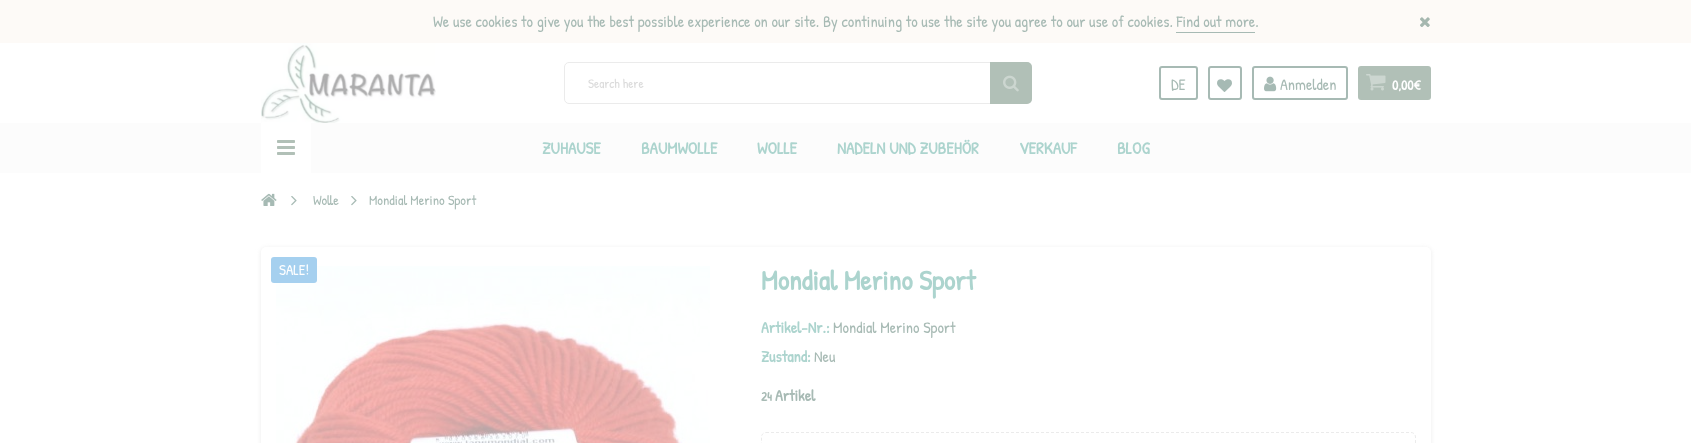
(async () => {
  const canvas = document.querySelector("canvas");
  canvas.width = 1691;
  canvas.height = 443;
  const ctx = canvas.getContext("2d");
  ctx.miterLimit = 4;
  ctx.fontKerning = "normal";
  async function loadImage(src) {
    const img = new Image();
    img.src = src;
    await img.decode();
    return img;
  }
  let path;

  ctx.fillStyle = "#ffffff";
  ctx.fillRect(0, 0, 1691, 443);
  ctx.fillStyle = "#fdfaf7";
  ctx.fillRect(0, 0, 1691, 43);
  ctx.fillStyle = "#a7bab4";
  ctx.fillRect(1176, 32, 79, 1);
  ctx.drawImage(await loadImage("img/1.png"), 1420, 17, 10, 10);
  ctx.drawImage(await loadImage("img/2.png"), 261, 43, 175, 80);
  ctx.beginPath();
  ctx.roundRect(564.5, 62.5, 467, 41, 4.5);
  ctx.strokeStyle = "#ebebeb";
  ctx.stroke();
  ctx.fillStyle = "#b1c0b7";
  ctx.beginPath();
  ctx.roundRect(990, 62, 42, 42, [0, 5, 5, 0]);
  ctx.fill();
  ctx.drawImage(await loadImage("img/3.png"), 1003, 75, 16, 17);
  ctx.beginPath();
  ctx.roundRect(1160, 67, 37, 32, 2);
  ctx.strokeStyle = "#a7bab4";
  ctx.lineWidth = 2;
  ctx.stroke();
  ctx.beginPath();
  ctx.roundRect(1209, 67, 32, 32, 2);
  ctx.stroke();
  ctx.drawImage(await loadImage("img/4.png"), 1217, 79, 15, 13);
  ctx.beginPath();
  ctx.roundRect(1253, 67, 94, 32, 2);
  ctx.stroke();
  ctx.drawImage(await loadImage("img/5.png"), 1264, 76, 13, 16);
  ctx.beginPath();
  ctx.roundRect(1358, 66, 73, 34, 3);
  ctx.fill();
  ctx.drawImage(await loadImage("img/6.png"), 1366, 74, 20, 17);
  ctx.fillStyle = "#fcfcfc";
  ctx.fillRect(0, 123, 1691, 50);
  ctx.fillStyle = "#ffffff";
  ctx.fillRect(261, 123, 50, 50);
  ctx.drawImage(await loadImage("img/7.png"), 277, 140, 18, 15);
  ctx.drawImage(await loadImage("img/8.png"), 261, 193, 16, 13);
  ctx.drawImage(await loadImage("img/9.png"), 291, 196, 6, 10);
  ctx.drawImage(await loadImage("img/9.png"), 351, 196, 6, 10);
  ctx.fillStyle = "#ebebeb";
  ctx.filter = "blur(2.5px)";
  ctx.beginPath();
  ctx.roundRect(261, 248, 1170, 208, 5);
  ctx.fill();
  ctx.filter = "none";
  ctx.fillStyle = "#ffffff";
  ctx.beginPath();
  ctx.roundRect(261, 247, 1170, 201, 5);
  ctx.fill();
  ctx.drawImage(await loadImage("img/10.png"), 276, 266, 434, 177);
  ctx.fillStyle = "#a5d0ef";
  ctx.beginPath();
  ctx.roundRect(271, 257, 46, 26, 3);
  ctx.fill();
  path = new Path2D("M766 432.5H1411C1413.5 432.5 1415.5 434.5 1415.5 437V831C1415.5 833.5 1413.5 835.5 1411 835.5H766C763.5 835.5 761.5 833.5 761.5 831V437C761.5 434.5 763.5 432.5 766 432.5Z");
  ctx.strokeStyle = "#ebebeb";
  ctx.lineWidth = 1;
  ctx.setLineDash([3, 2]);
  ctx.stroke(path);
  ctx.font = "16px Patrick Hand";
  ctx.fillStyle = "#a7bab4";
  ctx.fillText("We use cookies to give you the best possible experience on our site. By continuing to use the site you agree to our use of cookies. Find out more.", 433, 27);
  ctx.font = "13px Patrick Hand";
  ctx.fillStyle = "#dbdbdb";
  ctx.fillText("Search here", 588, 88);
  ctx.font = "16px Patrick Hand";
  ctx.fillStyle = "#a7bab4";
  ctx.fillText("DE", 1171, 90);
  ctx.fillText("Anmelden", 1280, 90);
  ctx.font = "bold 14px Patrick Hand";
  ctx.fillStyle = "#ffffff";
  ctx.fillText("0,00€", 1392, 90);
  ctx.font = "bold 17px Patrick Hand";
  ctx.fillStyle = "#acd4ce";
  for (const [text, x, y] of [
    ["ZUHAUSE", 542, 154],
    ["BAUMWOLLE", 641, 154],
    ["WOLLE", 757, 154],
    ["NADELN UND ZUBEHÖR", 837, 154],
    ["VERKAUF", 1019, 154],
    ["BLOG", 1117, 154],
  ]) {
    ctx.fillText(text, x, y);
  }
  ctx.font = "14px Patrick Hand";
  ctx.fillStyle = "#a7bab4";
  ctx.fillText("Wolle", 313, 205);
  ctx.fillText("Mondial Merino Sport", 369, 205);
  ctx.font = "15px Patrick Hand";
  ctx.fillStyle = "#ffffff";
  ctx.fillText("SALE!", 279, 275);
  ctx.font = "bold 28px Patrick Hand";
  ctx.fillStyle = "#acd4ce";
  ctx.fillText("Mondial Merino Sport", 761, 290);
  ctx.font = "bold 16px Patrick Hand";
  ctx.fillText("Artikel-Nr.:", 761, 333);
  ctx.font = "16px Patrick Hand";
  ctx.fillStyle = "#a7bab4";
  ctx.fillText("Mondial Merino Sport", 833, 333);
  ctx.font = "bold 16px Patrick Hand";
  ctx.fillStyle = "#acd4ce";
  ctx.fillText("Zustand:", 761, 362);
  ctx.font = "16px Patrick Hand";
  ctx.fillStyle = "#a7bab4";
  ctx.fillText("Neu", 814, 362);
  ctx.font = "bold 13px Patrick Hand";
  ctx.fillText("24", 761, 401);
  ctx.font = "bold 16px Patrick Hand";
  ctx.fillText("Artikel", 775, 401);
})();
